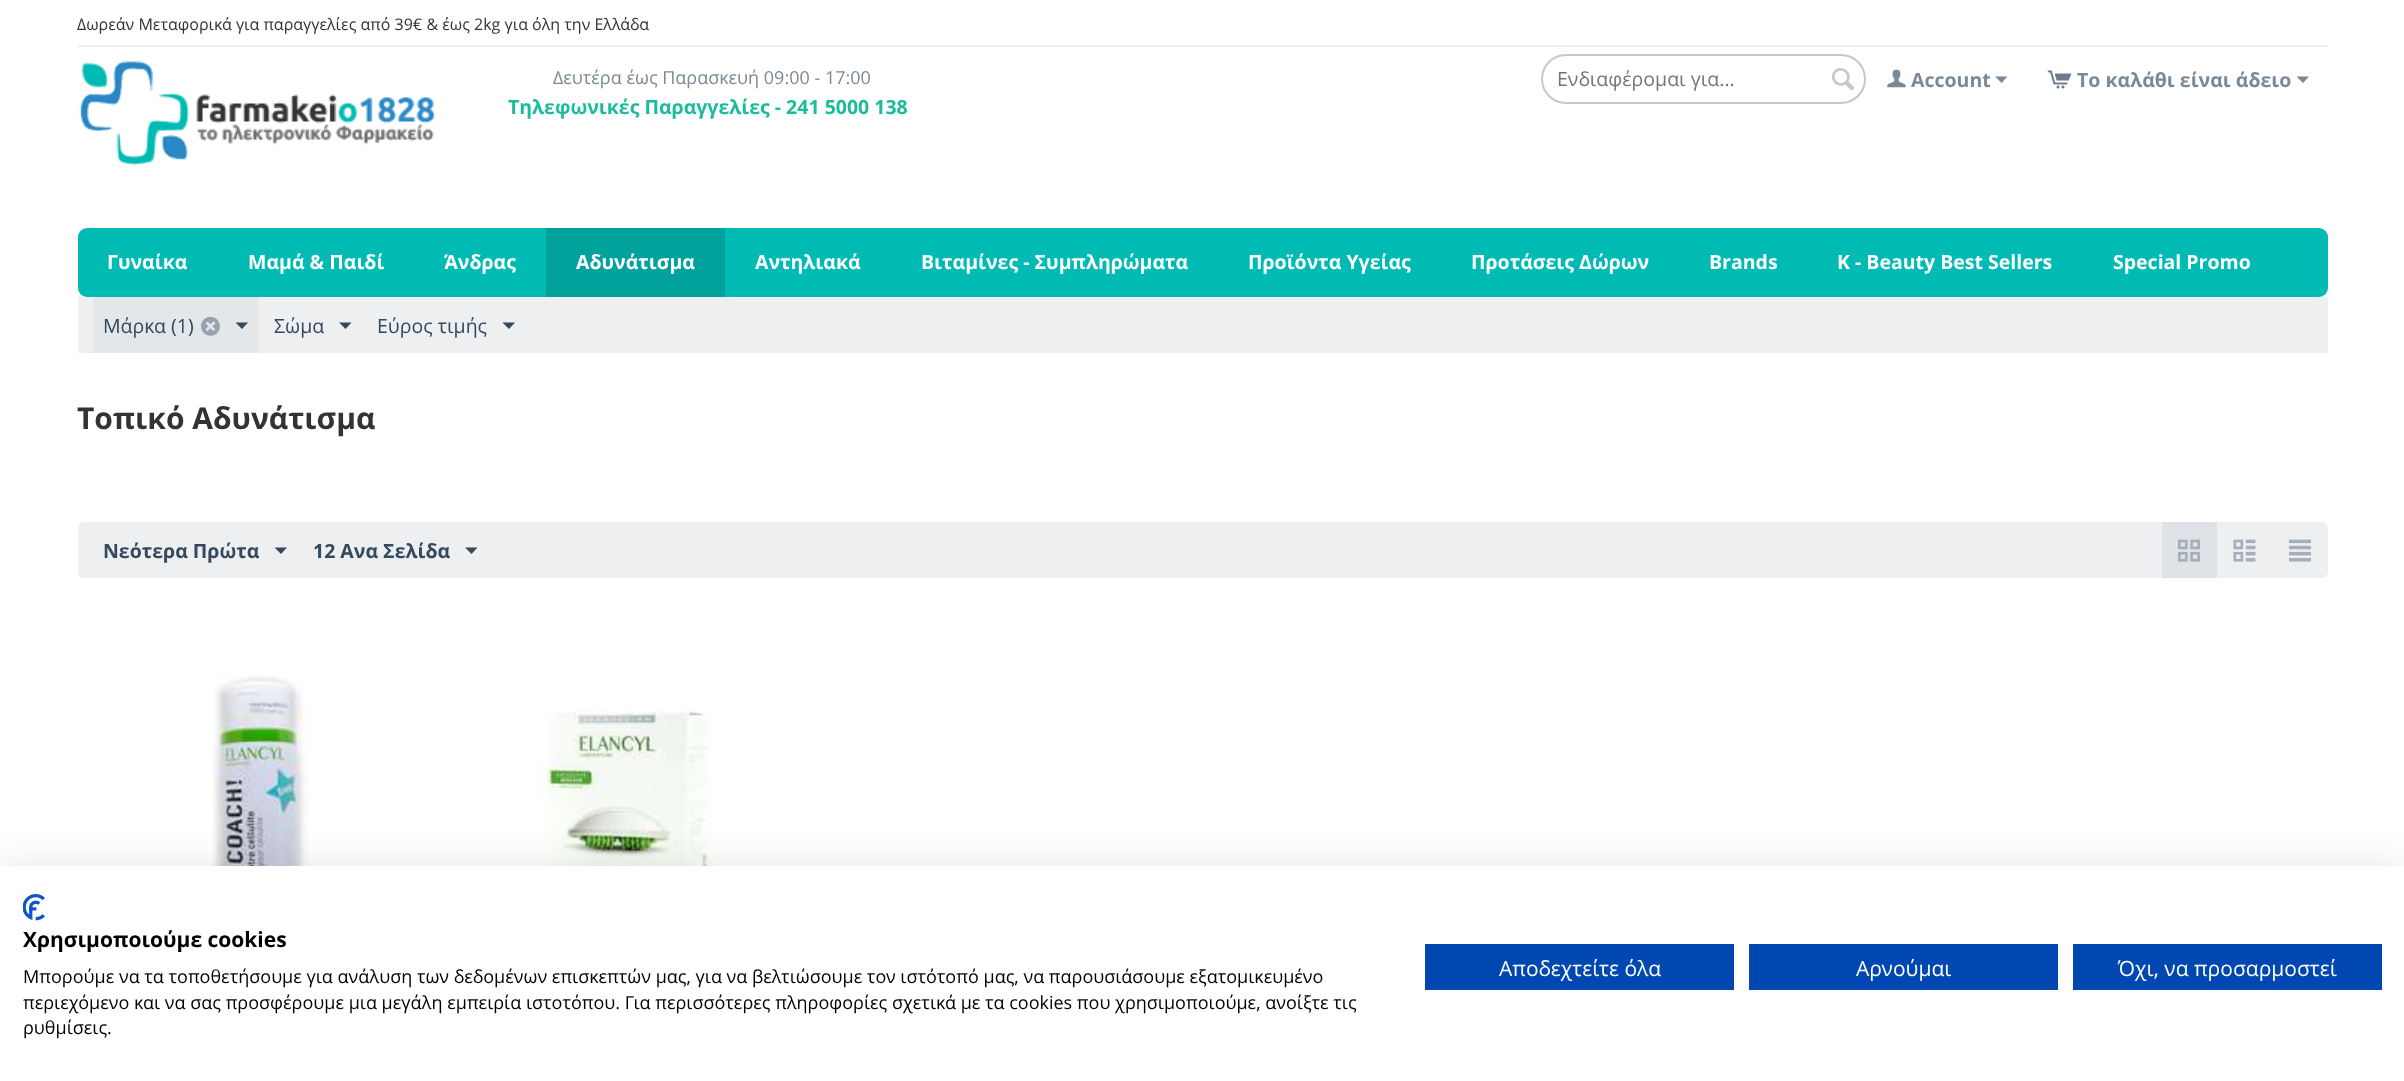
(async () => {
  const canvas = document.querySelector("canvas");
  canvas.width = 2404;
  canvas.height = 1081;
  const ctx = canvas.getContext("2d");
  ctx.miterLimit = 4;
  ctx.fontKerning = "normal";
  async function loadImage(src) {
    const img = new Image();
    img.src = src;
    await img.decode();
    return img;
  }
  let path;

  ctx.fillStyle = "#ffffff";
  ctx.fillRect(0, 0, 2404, 1081);
  ctx.fillStyle = "#efefef";
  ctx.fillRect(78, 45, 2250, 2);
  ctx.drawImage(await loadImage("img/1.png"), 79, 61, 357, 105);
  ctx.beginPath();
  ctx.roundRect(1542, 55, 323, 48, 24);
  ctx.strokeStyle = "#c2c9d0";
  ctx.lineWidth = 2;
  ctx.stroke();
  ctx.drawImage(await loadImage("img/2.png"), 1832, 68, 23, 23);
  ctx.drawImage(await loadImage("img/3.png"), 1887, 69, 19, 19);
  ctx.fillStyle = "#7a8998";
  path = new Path2D("M2001.5 83L1995 76.5H2007.5Z");
  ctx.fill(path);
  ctx.drawImage(await loadImage("img/4.png"), 2047, 70, 25, 19);
  path = new Path2D("M2303 83L2296.5 76.5H2309Z");
  ctx.fill(path);
  ctx.fillStyle = "#00bbb3";
  ctx.beginPath();
  ctx.roundRect(78, 228, 2250, 69, 9);
  ctx.fill();
  for (const [x, y, w, h, color] of [
    [546, 228, 179, 69, "#00a29b"],
    [78, 297, 2250, 56, "#edeff1"],
    [93, 297, 165, 56, "#e4e7ea"],
  ]) {
    ctx.fillStyle = color;
    ctx.fillRect(x, y, w, h);
  }
  ctx.drawImage(await loadImage("img/5.png"), 201, 316, 19, 20);
  ctx.fillStyle = "#34495e";
  path = new Path2D("M242 329L235.5 322.5H248Z");
  ctx.fill(path);
  path = new Path2D("M345.5 329L339 322.5H351.5Z");
  ctx.fill(path);
  path = new Path2D("M509 329L502.5 322.5H515Z");
  ctx.fill(path);
  ctx.fillStyle = "#edeff1";
  ctx.beginPath();
  ctx.roundRect(78, 522, 2250, 56, 6);
  ctx.fill();
  ctx.fillStyle = "#34495e";
  path = new Path2D("M281 554L274.5 547.5H287Z");
  ctx.fill(path);
  path = new Path2D("M471.5 554L465 547.5H477.5Z");
  ctx.fill(path);
  ctx.fillStyle = "#dfe2e6";
  ctx.fillRect(2162, 522, 55, 56);
  ctx.drawImage(await loadImage("img/6.png"), 2178, 539, 22, 23);
  ctx.drawImage(await loadImage("img/7.png"), 2233, 539, 23, 23);
  ctx.drawImage(await loadImage("img/8.png"), 2289, 539, 22, 23);
  ctx.drawImage(await loadImage("img/9.png"), 212, 675, 98, 191);
  ctx.fillStyle = "#ffffff";
  ctx.fillRect(279, 675, 14, 3);
  ctx.drawImage(await loadImage("img/10.png"), 535, 710, 179, 156);
  ctx.fillStyle = "rgba(0, 0, 0, 0.1)";
  ctx.filter = "blur(18px)";
  ctx.beginPath();
  ctx.rect(0, 866, 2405, 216);
  ctx.fill();
  ctx.filter = "none";
  ctx.fillStyle = "#ffffff";
  ctx.fillRect(0, 866, 2404, 215);
  ctx.drawImage(await loadImage("img/11.png"), 23, 894, 22, 27);
  for (const [x, y, w, h, color] of [
    [1425, 944, 309, 46, "#0047b2"],
    [1749, 944, 309, 46, "#0047b2"],
    [2073, 944, 309, 46, "#0047b2"],
  ]) {
    ctx.fillStyle = color;
    ctx.fillRect(x, y, w, h);
  }
  ctx.font = "16px Open Sans";
  ctx.fillStyle = "#333333";
  ctx.fillText("Δωρεάν Μεταφορικά για παραγγελίες από 39€ & έως 2kg για όλη την Ελλάδα", 77, 30);
  ctx.font = "18px Open Sans";
  ctx.fillStyle = "#7a8998";
  ctx.fillText("Δευτέρα έως Παρασκευή 09:00 - 17:00", 553, 84);
  ctx.font = "bold 19.5px Open Sans";
  ctx.fillStyle = "#1abc9c";
  ctx.fillText("Τηλεφωνικές Παραγγελίες - 241 5000 138", 508, 114);
  ctx.font = "19.5px Open Sans";
  ctx.fillStyle = "#757575";
  ctx.fillText("Ενδιαφέρομαι για...", 1557, 86);
  ctx.font = "bold 19.5px Open Sans";
  ctx.fillStyle = "#7a8998";
  ctx.fillText("Account", 1911, 87);
  ctx.fillText("Το καλάθι είναι άδειο", 2077, 87);
  ctx.fillStyle = "#ffffff";
  for (const [text, x, y] of [
    ["Γυναίκα", 107, 269],
    ["Μαμά & Παιδί", 248, 269],
    ["Άνδρας", 444, 269],
    ["Αδυνάτισμα", 576, 269],
    ["Αντηλιακά", 755, 269],
    ["Βιταμίνες - Συμπληρώματα", 921, 269],
    ["Προϊόντα Υγείας", 1248, 269],
    ["Προτάσεις Δώρων", 1471, 269],
    ["Brands", 1709, 269],
    ["K - Beauty Best Sellers", 1837, 269],
    ["Special Promo", 2113, 269],
  ]) {
    ctx.fillText(text, x, y);
  }
  ctx.font = "19.5px Open Sans";
  ctx.fillStyle = "#34495e";
  for (const [text, x, y] of [
    ["Μάρκα (1)", 103, 333],
    ["Σώμα", 274, 333],
    ["Εύρος τιμής", 377, 333],
  ]) {
    ctx.fillText(text, x, y);
  }
  ctx.font = "bold 30px Open Sans";
  ctx.fillStyle = "#333333";
  ctx.fillText("Τοπικό Αδυνάτισμα", 77, 429);
  ctx.font = "bold 19.5px Open Sans";
  ctx.fillStyle = "#34495e";
  ctx.fillText("Νεότερα Πρώτα", 103, 558);
  ctx.fillText("12 Ανα Σελίδα", 313, 558);
  ctx.font = "bold 21px Open Sans";
  ctx.fillStyle = "#000000";
  ctx.fillText("Χρησιμοποιούμε cookies", 23, 947);
  ctx.font = "18px Open Sans";
  for (const [text, x, y] of [
    ["Μπορούμε να τα τοποθετήσουμε για ανάλυση των δεδομένων επισκεπτών μας, για να βελτιώσουμε τον ιστότοπό μας, να παρουσιάσουμε εξατομικευμένο", 23, 983],
    ["περιεχόμενο και να σας προσφέρουμε μια μεγάλη εμπειρία ιστοτόπου. Για περισσότερες πληροφορίες σχετικά με τα cookies που χρησιμοποιούμε, ανοίξτε τις", 23, 1009],
    ["ρυθμίσεις.", 23, 1034],
  ]) {
    ctx.fillText(text, x, y);
  }
  ctx.font = "21px Open Sans";
  ctx.fillStyle = "#ffffff";
  for (const [text, x, y] of [
    ["Αποδεχτείτε όλα", 1499, 976],
    ["Αρνούμαι", 1856, 976],
    ["Όχι, να προσαρμοστεί", 2118, 976],
  ]) {
    ctx.fillText(text, x, y);
  }
})();
